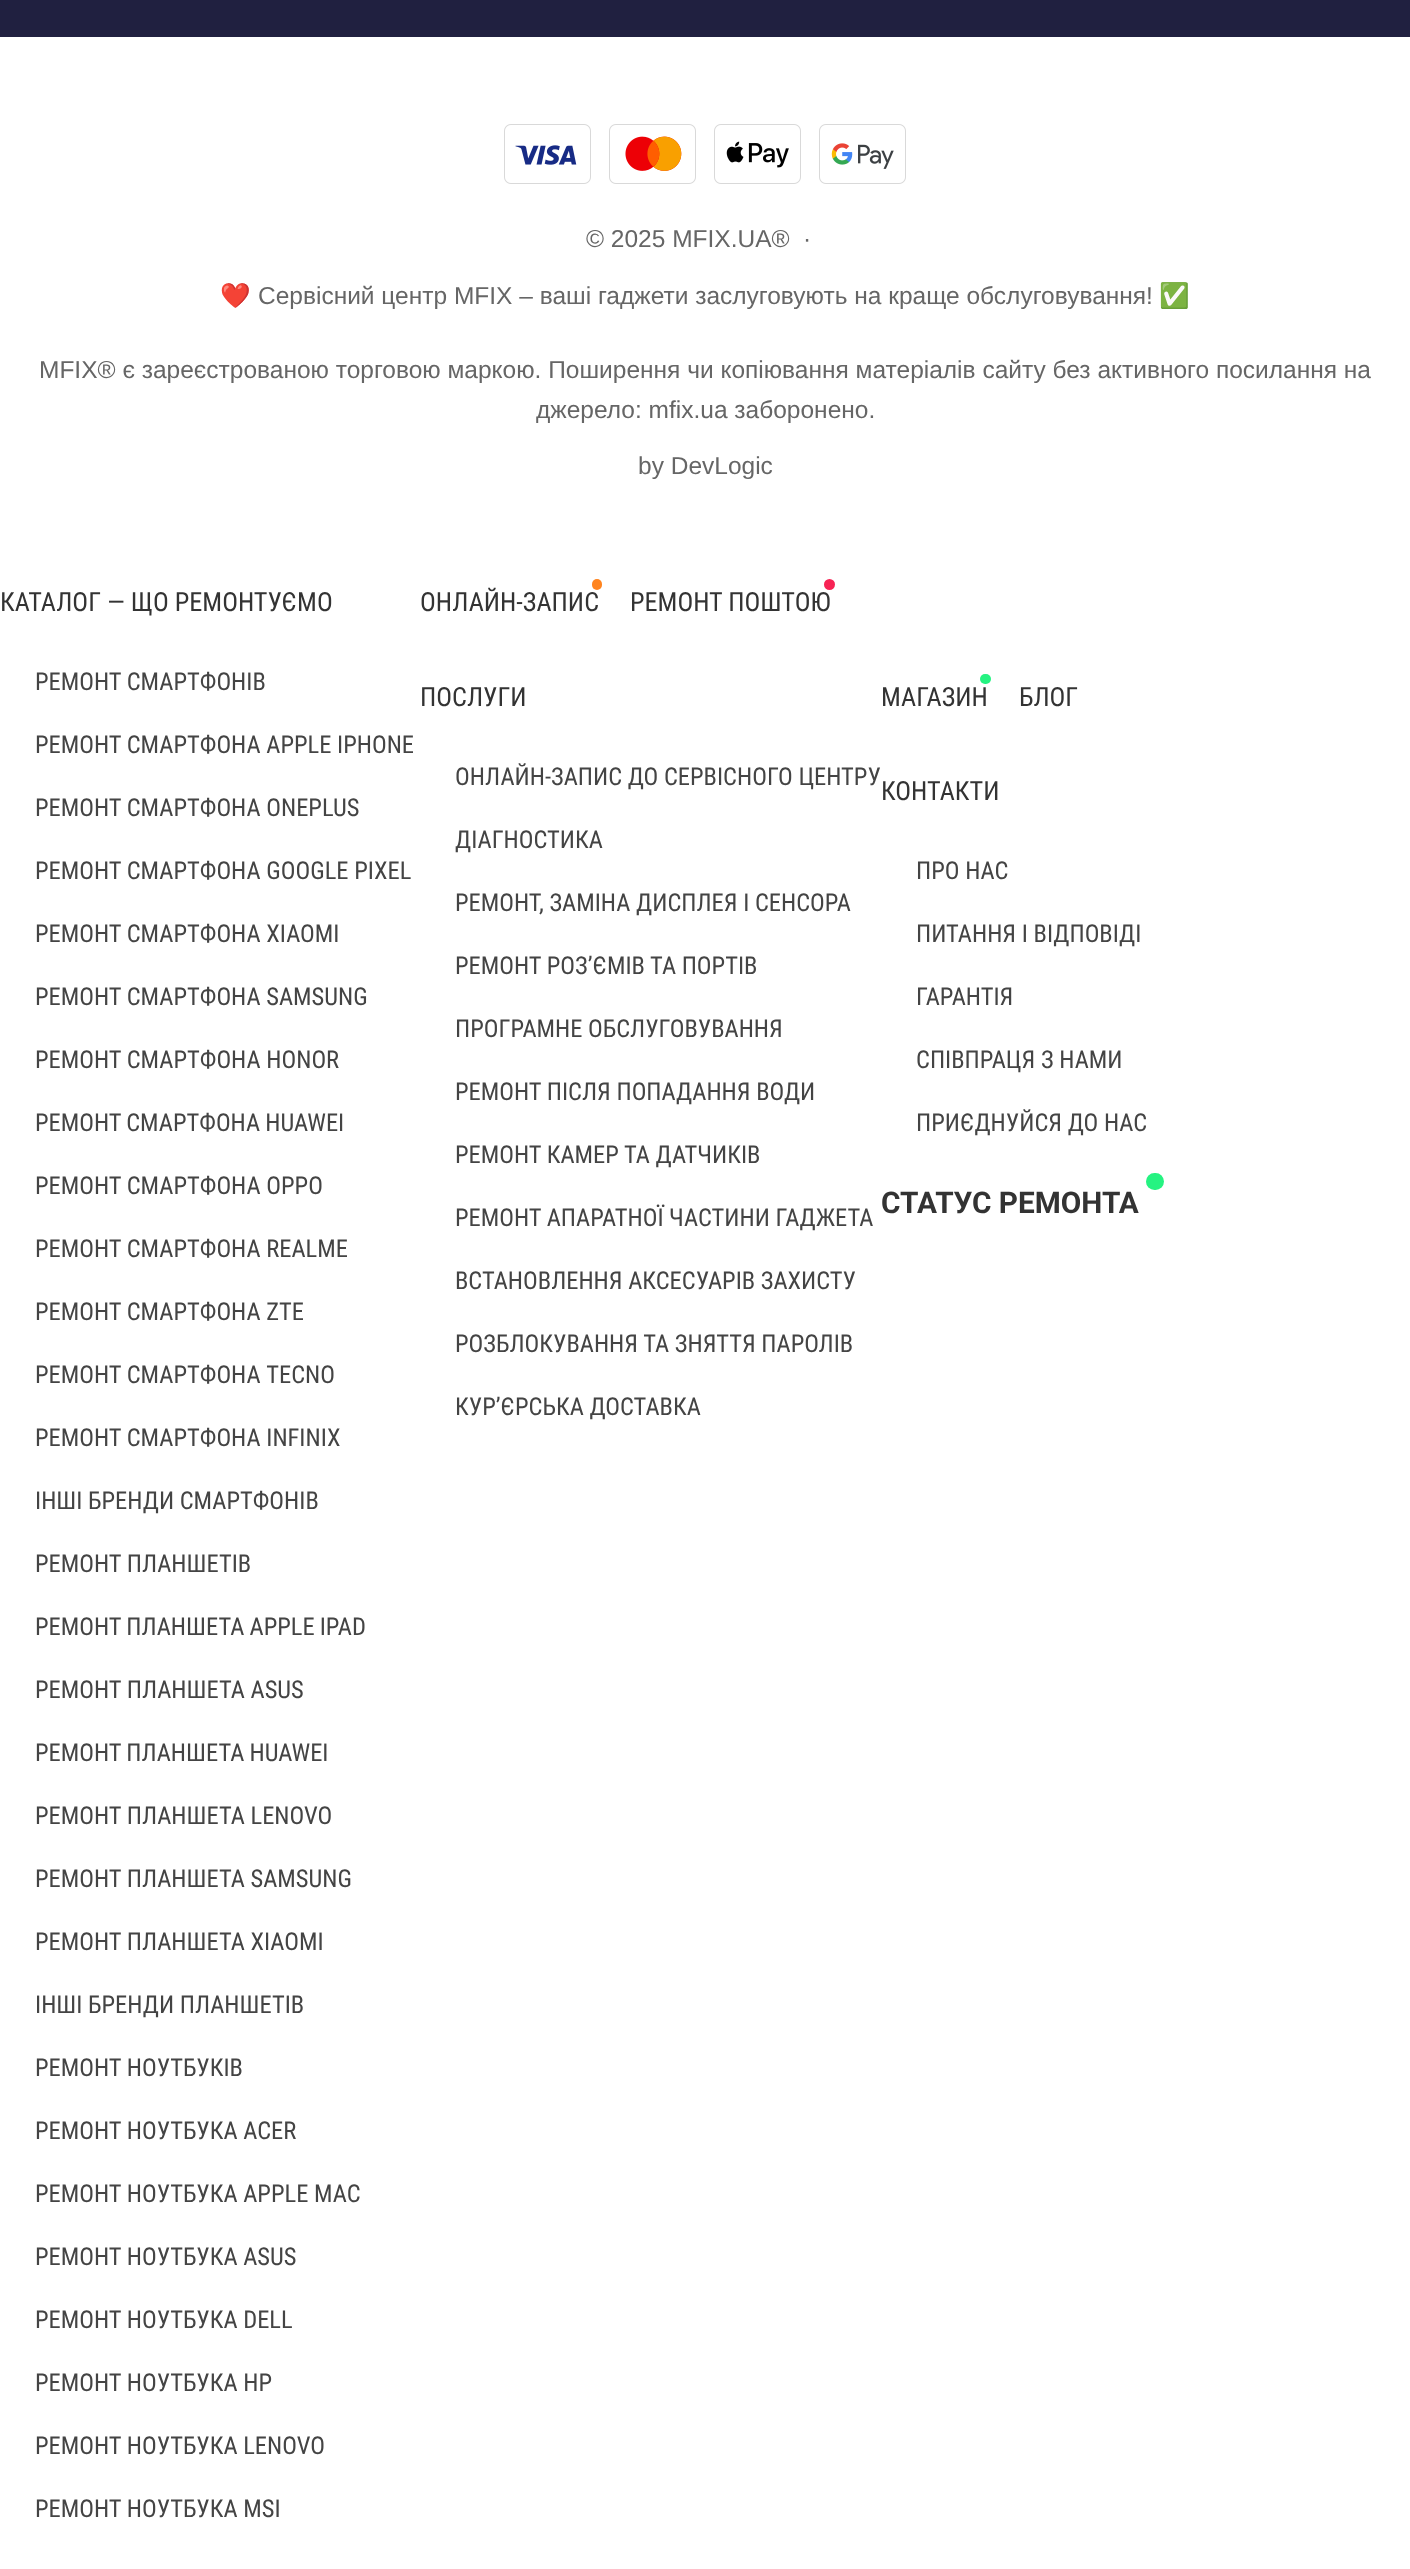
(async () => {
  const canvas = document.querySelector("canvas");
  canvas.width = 1410;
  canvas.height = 2569;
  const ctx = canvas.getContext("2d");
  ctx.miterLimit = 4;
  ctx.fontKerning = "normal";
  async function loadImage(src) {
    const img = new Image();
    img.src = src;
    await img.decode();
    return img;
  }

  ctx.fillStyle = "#ffffff";
  ctx.fillRect(0, 0, 1410, 2569);
  ctx.fillStyle = "#202040";
  ctx.fillRect(0, 0, 1410, 37);
  ctx.drawImage(await loadImage("img/1.png"), 504, 124, 87, 60);
  ctx.drawImage(await loadImage("img/2.png"), 609, 124, 87, 60);
  ctx.drawImage(await loadImage("img/3.png"), 714, 124, 87, 60);
  ctx.drawImage(await loadImage("img/4.png"), 819, 124, 87, 60);
  ctx.fillStyle = "#f72354";
  ctx.beginPath();
  ctx.arc(829.5, 584.5, 5.5, 0, Math.PI * 2);
  ctx.fill();
  ctx.fillStyle = "#25f381";
  ctx.beginPath();
  ctx.roundRect(980, 674, 11, 10, 5);
  ctx.fill();
  ctx.beginPath();
  ctx.roundRect(1146, 1173, 18, 17, 8.5);
  ctx.fill();
  ctx.font = "24.5px Liberation Sans";
  ctx.fillStyle = "#666666";
  ctx.fillText("© 2025 MFIX.UA®", 586, 247);
  ctx.fillText("·", 803, 247);
  ctx.font = "24.5px Noto Color Emoji";
  ctx.fillText("❤️", 220, 304);
  ctx.font = "24.5px Liberation Sans";
  ctx.fillText("Сервісний центр MFIX – ваші гаджети заслуговують на краще обслуговування!", 258, 304);
  ctx.font = "24.5px Noto Color Emoji";
  ctx.fillText("✅", 1159, 304);
  ctx.font = "24.5px Liberation Sans";
  for (const [text, x, y] of [
    ["MFIX® є зареєстрованою торговою маркою. Поширення чи копіювання матеріалів сайту без активного посилання на", 39, 378],
    ["джерело: mfix.ua заборонено.", 536, 418],
    ["by DevLogic", 638, 474],
  ]) {
    ctx.fillText(text, x, y);
  }
  ctx.font = "26.25px Roboto Condensed";
  ctx.fillStyle = "#333333";
  ctx.fillText("КАТАЛОГ — ЩО РЕМОНТУЄМО", 0, 611);
  ctx.font = "24.5px Roboto Condensed";
  ctx.fillStyle = "#444444";
  for (const [text, x, y] of [
    ["РЕМОНТ СМАРТФОНІВ", 35, 690],
    ["РЕМОНТ СМАРТФОНА APPLE IPHONE", 35, 753],
    ["РЕМОНТ СМАРТФОНА ONEPLUS", 35, 816],
    ["РЕМОНТ СМАРТФОНА GOOGLE PIXEL", 35, 879],
    ["РЕМОНТ СМАРТФОНА XIAOMI", 35, 942],
    ["РЕМОНТ СМАРТФОНА SAMSUNG", 35, 1005],
    ["РЕМОНТ СМАРТФОНА HONOR", 35, 1068],
  ]) {
    ctx.fillText(text, x, y);
  }
  ctx.wordSpacing = "-0.5px";
  ctx.fillText("РЕМОНТ СМАРТФОНА HUAWEI", 35, 1131);
  ctx.wordSpacing = "0px";
  for (const [text, x, y] of [
    ["РЕМОНТ СМАРТФОНА OPPO", 35, 1194],
    ["РЕМОНТ СМАРТФОНА REALME", 35, 1257],
    ["РЕМОНТ СМАРТФОНА ZTE", 35, 1320],
    ["РЕМОНТ СМАРТФОНА TECNO", 35, 1383],
    ["РЕМОНТ СМАРТФОНА INFINIX", 35, 1446],
    ["ІНШІ БРЕНДИ СМАРТФОНІВ", 35, 1509],
    ["РЕМОНТ ПЛАНШЕТІВ", 35, 1572],
  ]) {
    ctx.fillText(text, x, y);
  }
  ctx.wordSpacing = "-0.5px";
  ctx.fillText("РЕМОНТ ПЛАНШЕТА APPLE IPAD", 35, 1635);
  ctx.wordSpacing = "0px";
  ctx.fillText("РЕМОНТ ПЛАНШЕТА ASUS", 35, 1698);
  ctx.wordSpacing = "-0.5px";
  ctx.fillText("РЕМОНТ ПЛАНШЕТА HUAWEI", 35, 1761);
  ctx.wordSpacing = "0px";
  for (const [text, x, y] of [
    ["РЕМОНТ ПЛАНШЕТА LENOVO", 35, 1824],
    ["РЕМОНТ ПЛАНШЕТА SAMSUNG", 35, 1887],
    ["РЕМОНТ ПЛАНШЕТА XIAOMI", 35, 1950],
    ["ІНШІ БРЕНДИ ПЛАНШЕТІВ", 35, 2013],
    ["РЕМОНТ НОУТБУКІВ", 35, 2076],
    ["РЕМОНТ НОУТБУКА ACER", 35, 2139],
    ["РЕМОНТ НОУТБУКА APPLE MAC", 35, 2202],
    ["РЕМОНТ НОУТБУКА ASUS", 35, 2265],
    ["РЕМОНТ НОУТБУКА DELL", 35, 2328],
    ["РЕМОНТ НОУТБУКА HP", 35, 2391],
    ["РЕМОНТ НОУТБУКА LENOVO", 35, 2454],
    ["РЕМОНТ НОУТБУКА MSI", 35, 2517],
  ]) {
    ctx.fillText(text, x, y);
  }
  ctx.font = "26.25px Roboto Condensed";
  ctx.fillStyle = "#333333";
  ctx.fillText("ОНЛАЙН-ЗАПИС", 420, 611);
  ctx.fillStyle = "#ff841f";
  ctx.beginPath();
  ctx.roundRect(592, 579, 10, 11, 5);
  ctx.fill();
  ctx.fillStyle = "#333333";
  ctx.fillText("РЕМОНТ ПОШТОЮ", 630, 611);
  ctx.fillText("ПОСЛУГИ", 420, 706);
  ctx.font = "24.5px Roboto Condensed";
  ctx.fillStyle = "#444444";
  for (const [text, x, y] of [
    ["ОНЛАЙН-ЗАПИС ДО СЕРВІСНОГО ЦЕНТРУ", 455, 785],
    ["ДІАГНОСТИКА", 455, 848],
    ["РЕМОНТ, ЗАМІНА ДИСПЛЕЯ І СЕНСОРА", 455, 911],
    ["РЕМОНТ РОЗ’ЄМІВ ТА ПОРТІВ", 455, 974],
    ["ПРОГРАМНЕ ОБСЛУГОВУВАННЯ", 455, 1037],
    ["РЕМОНТ ПІСЛЯ ПОПАДАННЯ ВОДИ", 455, 1100],
    ["РЕМОНТ КАМЕР ТА ДАТЧИКІВ", 455, 1163],
    ["РЕМОНТ АПАРАТНОЇ ЧАСТИНИ ГАДЖЕТА", 455, 1226],
    ["ВСТАНОВЛЕННЯ АКСЕСУАРІВ ЗАХИСТУ", 455, 1289],
    ["РОЗБЛОКУВАННЯ ТА ЗНЯТТЯ ПАРОЛІВ", 455, 1352],
    ["КУР’ЄРСЬКА ДОСТАВКА", 455, 1415],
  ]) {
    ctx.fillText(text, x, y);
  }
  ctx.font = "26.25px Roboto Condensed";
  ctx.fillStyle = "#333333";
  for (const [text, x, y] of [
    ["МАГАЗИН", 881, 706],
    ["БЛОГ", 1019, 706],
    ["КОНТАКТИ", 881, 800],
  ]) {
    ctx.fillText(text, x, y);
  }
  ctx.font = "24.5px Roboto Condensed";
  ctx.fillStyle = "#444444";
  for (const [text, x, y] of [
    ["ПРО НАС", 916, 879],
    ["ПИТАННЯ І ВІДПОВІДІ", 916, 942],
    ["ГАРАНТІЯ", 916, 1005],
    ["СПІВПРАЦЯ З НАМИ", 916, 1068],
    ["ПРИЄДНУЙСЯ ДО НАС", 916, 1131],
  ]) {
    ctx.fillText(text, x, y);
  }
  ctx.font = "bold 29.75px Roboto";
  ctx.fillStyle = "#333333";
  ctx.fillText("СТАТУС РЕМОНТА", 881, 1213);
})();
